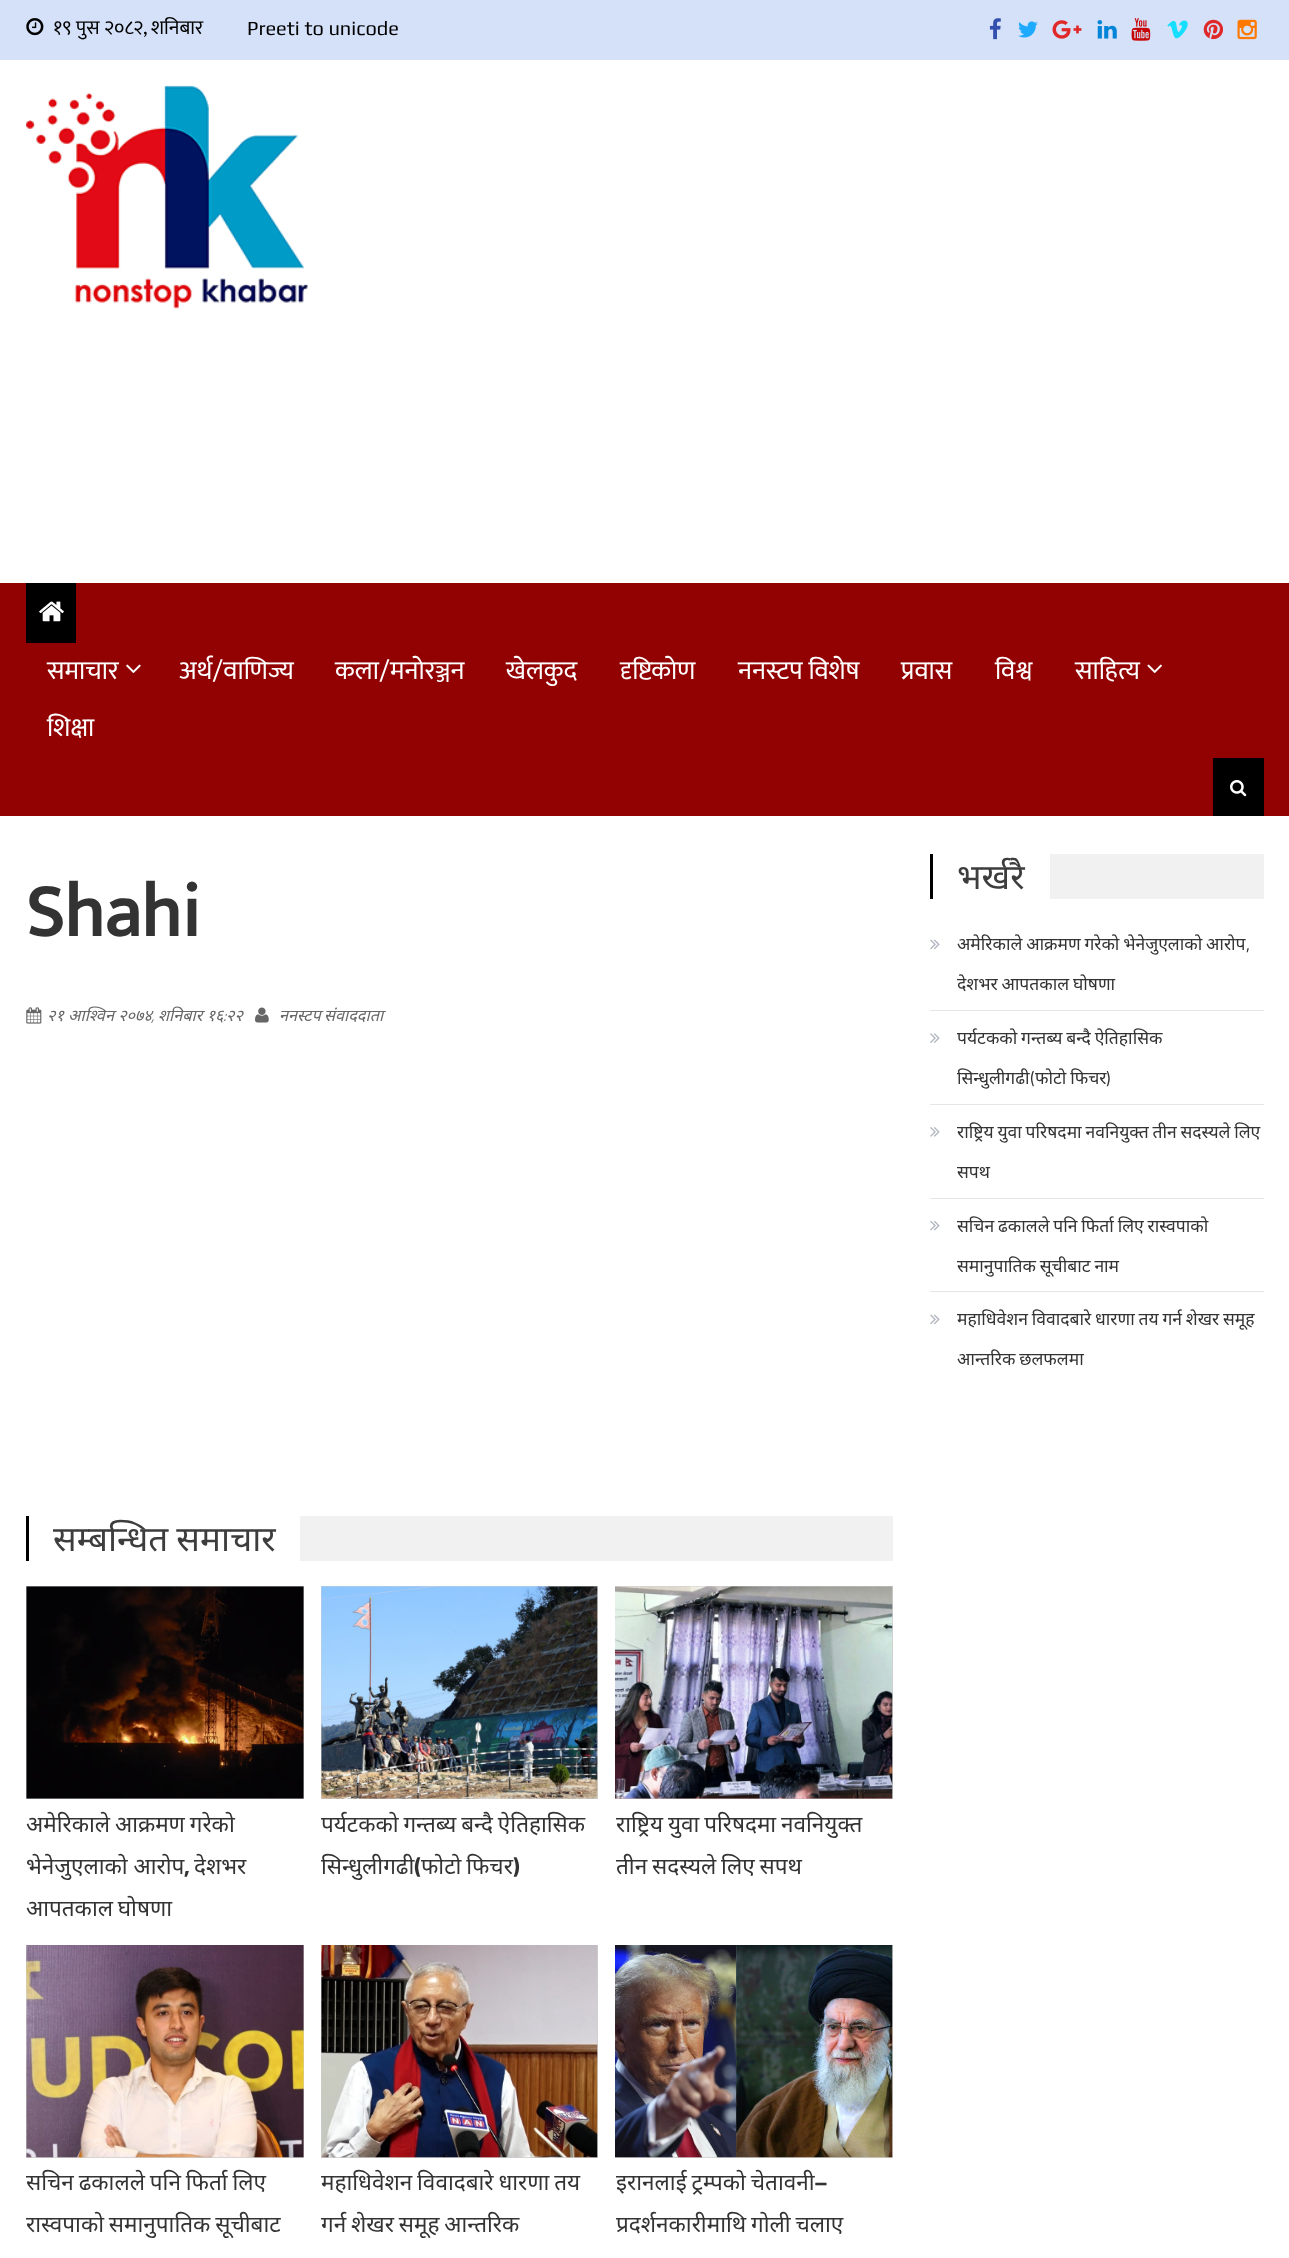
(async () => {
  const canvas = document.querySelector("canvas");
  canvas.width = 1289;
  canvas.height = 2258;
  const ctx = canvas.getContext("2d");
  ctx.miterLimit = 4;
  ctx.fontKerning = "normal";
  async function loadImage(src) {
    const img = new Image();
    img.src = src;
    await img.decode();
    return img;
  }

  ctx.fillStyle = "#ffffff";
  ctx.fillRect(0, 0, 1289, 2258);
  ctx.fillStyle = "#d5e1f8";
  ctx.fillRect(0, 0, 1289, 60);
  ctx.drawImage(await loadImage("img/1.png"), 26, 18, 18, 18);
  ctx.drawImage(await loadImage("img/2.png"), 989, 18, 12, 22);
  ctx.drawImage(await loadImage("img/3.png"), 1018, 21, 20, 17);
  ctx.drawImage(await loadImage("img/4.png"), 1052, 20, 30, 19);
  ctx.drawImage(await loadImage("img/5.png"), 1097, 20, 20, 19);
  ctx.drawImage(await loadImage("img/6.png"), 1131, 18, 20, 23);
  ctx.drawImage(await loadImage("img/7.png"), 1167, 20, 21, 19);
  ctx.drawImage(await loadImage("img/8.png"), 1203, 19, 20, 21);
  ctx.drawImage(await loadImage("img/9.png"), 1237, 19, 20, 21);
  ctx.drawImage(await loadImage("img/10.png"), 26, 85, 282, 224);
  ctx.fillStyle = "#930202";
  ctx.fillRect(0, 583, 1289, 233);
  ctx.fillStyle = "#000000";
  ctx.fillRect(26, 583, 50, 60);
  ctx.drawImage(await loadImage("img/11.png"), 39, 601, 25, 21);
  ctx.drawImage(await loadImage("img/12.png"), 126, 664, 15, 9);
  ctx.drawImage(await loadImage("img/13.png"), 1147, 664, 15, 9);
  ctx.fillRect(1213, 758, 51, 58);
  ctx.drawImage(await loadImage("img/14.png"), 1230, 780, 17, 17);
  ctx.drawImage(await loadImage("img/15.png"), 26, 1007, 16, 17);
  ctx.drawImage(await loadImage("img/16.png"), 255, 1007, 14, 16);
  for (const [x, y, w, h, color] of [
    [300, 1516, 593, 45, "#f1f1f1"],
    [26, 1516, 3, 45, "#000000"],
    [26, 1586, 278, 213, "#cecece"],
  ]) {
    ctx.fillStyle = color;
    ctx.fillRect(x, y, w, h);
  }
  ctx.drawImage(await loadImage("img/17.png"), 26, 1586, 278, 213);
  ctx.fillRect(321, 1586, 277, 213);
  ctx.drawImage(await loadImage("img/18.png"), 321, 1586, 277, 213);
  ctx.fillRect(615, 1586, 278, 213);
  ctx.drawImage(await loadImage("img/19.png"), 615, 1586, 278, 213);
  ctx.fillRect(26, 1945, 278, 213);
  ctx.drawImage(await loadImage("img/20.png"), 26, 1945, 278, 213);
  ctx.fillRect(321, 1945, 277, 213);
  ctx.drawImage(await loadImage("img/21.png"), 321, 1945, 277, 213);
  ctx.fillRect(615, 1945, 278, 213);
  ctx.drawImage(await loadImage("img/22.png"), 615, 1945, 278, 213);
  for (const [x, y, w, h, color] of [
    [1050, 854, 214, 45, "#f1f1f1"],
    [930, 854, 3, 45, "#000000"],
    [930, 1010, 334, 1, "#e6e6e6"],
  ]) {
    ctx.fillStyle = color;
    ctx.fillRect(x, y, w, h);
  }
  ctx.drawImage(await loadImage("img/23.png"), 930, 939, 10, 11);
  ctx.fillRect(930, 1104, 334, 1);
  ctx.drawImage(await loadImage("img/24.png"), 930, 1033, 10, 10);
  ctx.fillRect(930, 1198, 334, 1);
  ctx.drawImage(await loadImage("img/25.png"), 930, 1127, 10, 10);
  ctx.fillRect(930, 1291, 334, 1);
  ctx.drawImage(await loadImage("img/26.png"), 930, 1220, 10, 11);
  ctx.drawImage(await loadImage("img/23.png"), 930, 1314, 10, 11);
  ctx.font = "20px Ek Mukta";
  ctx.fillStyle = "#000000";
  ctx.fillText("१९ पुस २०८२, शनिबार", 53, 34);
  ctx.font = "20px Play";
  ctx.fillText("Preeti to unicode", 247, 35);
  ctx.font = "26.25px Ek Mukta";
  ctx.fillStyle = "#ffffff";
  for (const [text, x, y] of [
    ["समाचार", 47, 679],
    ["अर्थ/वाणिज्य", 179, 679],
    ["कला/मनोरञ्जन", 335, 679],
    ["खेलकुद", 506, 679],
    ["दृष्टिकोण", 620, 679],
    ["ननस्टप विशेष", 738, 679],
    ["प्रवास", 901, 679],
    ["विश्व", 995, 679],
    ["साहित्य", 1075, 679],
    ["शिक्षा", 47, 736],
  ]) {
    ctx.fillText(text, x, y);
  }
  ctx.font = "bold 75px Ek Mukta";
  ctx.fillStyle = "#333333";
  ctx.fillText("Shahi", 26, 936);
  ctx.font = "italic 16.25px Noto Sans";
  ctx.fillStyle = "#666666";
  ctx.fillText("२१ आश्विन २०७४", 47, 1021);
  ctx.fillText("शनिबार १६", 158, 1021);
  ctx.font = "italic 300 16.25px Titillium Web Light";
  ctx.fillText(":", 223, 1021);
  ctx.font = "italic 16.25px Noto Sans";
  ctx.fillText("२२", 226, 1021);
  ctx.wordSpacing = "-1px";
  ctx.fillText("ननस्टप संवाददाता", 279, 1021);
  ctx.wordSpacing = "0px";
  ctx.font = "italic 300 16.25px Titillium Web Light";
  ctx.fillText(",", 151, 1021);
  ctx.wordSpacing = "-1px";
  ctx.font = "35px Noto Sans";
  ctx.fillStyle = "#3d3d3d";
  ctx.fillText("सम्बन्धित समाचार", 53, 1551);
  ctx.font = "22.5px Noto Sans";
  ctx.fillStyle = "#333333";
  ctx.fillText("अमेरिकाले आक्रमण गरेको", 26, 1832);
  ctx.wordSpacing = "0px";
  ctx.fillText("भेनेजुएलाको आरोप", 26, 1874);
  ctx.font = "bold 22.5px Titillium Web";
  ctx.fillText(",", 184, 1874);
  ctx.font = "22.5px Noto Sans";
  ctx.fillText("देशभर", 194, 1874);
  ctx.wordSpacing = "-1px";
  ctx.fillText("आपतकाल घोषणा", 26, 1916);
  ctx.fillText("पर्यटकको गन्तब्य बन्दै ऐतिहासिक", 321, 1832);
  ctx.wordSpacing = "0px";
  ctx.fillText("सिन्धुलीगढी", 321, 1874);
  ctx.font = "bold 22.5px Titillium Web";
  ctx.fillText("(", 414, 1874);
  ctx.wordSpacing = "-1px";
  ctx.font = "22.5px Noto Sans";
  ctx.fillText("फोटो फिचर", 421, 1874);
  ctx.wordSpacing = "0px";
  ctx.font = "bold 22.5px Titillium Web";
  ctx.fillText(")", 513, 1874);
  ctx.wordSpacing = "-1px";
  ctx.font = "22.5px Noto Sans";
  for (const [text, x, y] of [
    ["राष्ट्रिय युवा परिषदमा नवनियुक्त", 616, 1832],
    ["तीन सदस्यले लिए सपथ", 616, 1874],
    ["सचिन ढकालले पनि फिर्ता लिए", 26, 2190],
    ["रास्वपाको समानुपातिक सूचीबाट", 26, 2232],
    ["महाधिवेशन विवादबारे धारणा तय", 321, 2190],
    ["गर्न शेखर समूह आन्तरिक", 321, 2232],
    ["इरानलाई ट्रम्पको चेतावनी", 616, 2190],
  ]) {
    ctx.fillText(text, x, y);
  }
  ctx.wordSpacing = "0px";
  ctx.font = "bold 22.5px Titillium Web";
  ctx.fillText("–", 814, 2190);
  ctx.wordSpacing = "-1px";
  ctx.font = "22.5px Noto Sans";
  ctx.fillText("प्रदर्शनकारीमाथि गोली चलाए", 616, 2232);
  ctx.wordSpacing = "0px";
  ctx.font = "35px Noto Sans";
  ctx.fillStyle = "#3d3d3d";
  ctx.fillText("भर्खरै", 957, 889);
  ctx.wordSpacing = "-0.75px";
  ctx.font = "17.5px Noto Sans";
  ctx.fillStyle = "#333333";
  ctx.fillText("अमेरिकाले आक्रमण गरेको भेनेजुएलाको आरोप", 957, 950);
  ctx.wordSpacing = "0px";
  ctx.font = "17.5px Titillium Web";
  ctx.fillText(",", 1246, 950);
  ctx.wordSpacing = "-0.75px";
  ctx.font = "17.5px Noto Sans";
  ctx.fillText("देशभर आपतकाल घोषणा", 957, 990);
  ctx.fillText("पर्यटकको गन्तब्य बन्दै ऐतिहासिक", 957, 1044);
  ctx.wordSpacing = "0px";
  ctx.fillText("सिन्धुलीगढी", 957, 1084);
  ctx.font = "17.5px Titillium Web";
  ctx.fillText("(", 1030, 1084);
  ctx.wordSpacing = "-0.75px";
  ctx.font = "17.5px Noto Sans";
  ctx.fillText("फोटो फिचर", 1035, 1084);
  ctx.wordSpacing = "0px";
  ctx.font = "17.5px Titillium Web";
  ctx.fillText(")", 1106, 1084);
  ctx.wordSpacing = "-0.75px";
  ctx.font = "17.5px Noto Sans";
  ctx.fillText("राष्ट्रिय युवा परिषदमा नवनियुक्त तीन सदस्यले लिए", 957, 1138);
  ctx.wordSpacing = "0px";
  ctx.fillText("सपथ", 957, 1178);
  ctx.wordSpacing = "-0.75px";
  for (const [text, x, y] of [
    ["सचिन ढकालले पनि फिर्ता लिए रास्वपाको", 957, 1232],
    ["समानुपातिक सूचीबाट नाम", 957, 1272],
    ["महाधिवेशन विवादबारे धारणा तय गर्न शेखर समूह", 957, 1325],
    ["आन्तरिक छलफलमा", 957, 1365],
  ]) {
    ctx.fillText(text, x, y);
  }
})();
